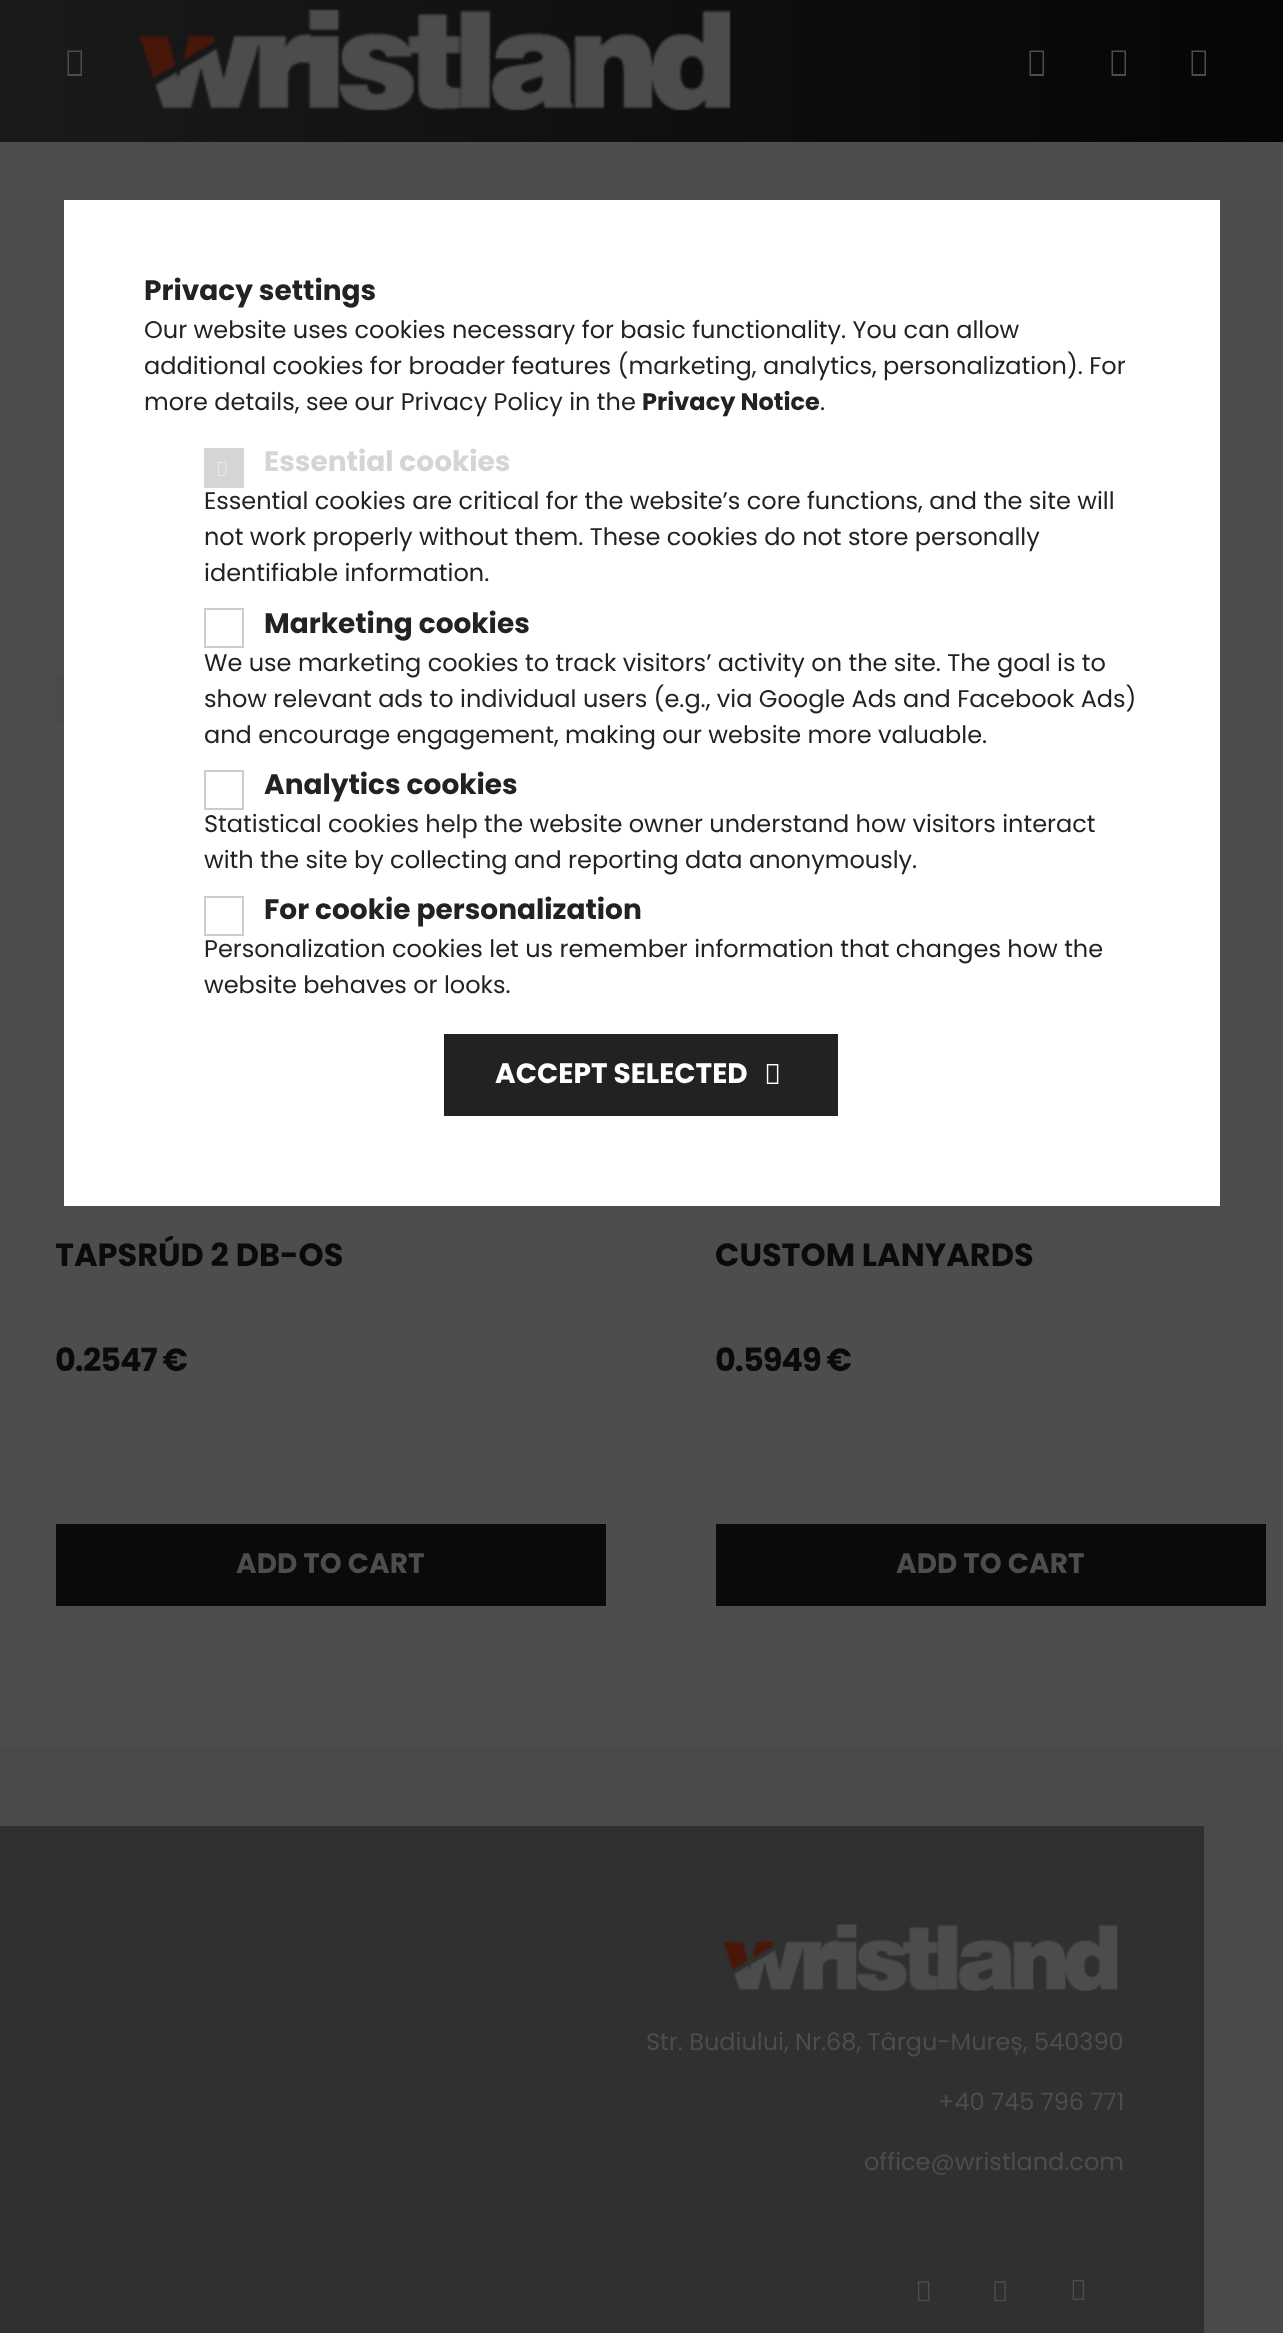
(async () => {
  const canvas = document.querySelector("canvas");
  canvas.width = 1283;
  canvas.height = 2333;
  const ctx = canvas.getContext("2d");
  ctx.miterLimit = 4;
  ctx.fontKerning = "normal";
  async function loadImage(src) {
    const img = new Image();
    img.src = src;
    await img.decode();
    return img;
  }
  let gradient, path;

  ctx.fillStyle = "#4d4d4d";
  ctx.fillRect(0, 0, 1283, 2333);
  gradient = ctx.createLinearGradient(40, 451, 1244, 451);
  gradient.addColorStop(0.1, "#4d4d4d");
  gradient.addColorStop(0.5, "#424242");
  gradient.addColorStop(0.9, "#4d4d4d");
  ctx.fillStyle = gradient;
  ctx.fillRect(270, 432, 744, 38);
  gradient = ctx.createLinearGradient(642, 470, 642, 432);
  gradient.addColorStop(0, "#4d4d4d");
  gradient.addColorStop(1, "rgba(77, 77, 77, 0)");
  ctx.fillStyle = gradient;
  ctx.fillRect(270, 442, 744, 28);
  ctx.fillStyle = "#ffffff";
  ctx.fillRect(64, 200, 1156, 1006);
  ctx.fillStyle = "#d5d5d5";
  ctx.fillRect(204, 448, 40, 40);
  ctx.drawImage(await loadImage("img/1.png"), 218, 461, 9, 15);
  ctx.strokeStyle = "#cccccc";
  ctx.lineWidth = 2;
  ctx.strokeRect(205, 609, 38, 38);
  ctx.strokeRect(205, 771, 38, 38);
  ctx.strokeRect(205, 897, 38, 38);
  gradient = ctx.createLinearGradient(-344, 1075, 838, 1075);
  gradient.addColorStop(0, "#555555");
  gradient.addColorStop(0.33, "#111111");
  gradient.addColorStop(0.67, "#222222");
  gradient.addColorStop(1, "#222222");
  ctx.fillStyle = gradient;
  ctx.fillRect(444, 1034, 394, 82);
  ctx.drawImage(await loadImage("img/2.png"), 766, 1064, 13, 20);
  gradient = ctx.createLinearGradient(0, 62, 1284, 62);
  gradient.addColorStop(0, "#1a1a1a");
  gradient.addColorStop(1, "#050505");
  ctx.fillStyle = gradient;
  ctx.fillRect(0, 0, 1283, 142);
  ctx.fillStyle = "#4d4d4d";
  path = new Path2D("M67.5 76V50.5H82V76ZM69 74H80.5V52H69Z");
  ctx.fill(path);
  ctx.drawImage(await loadImage("img/3.png"), 140, 9, 591, 102);
  path = new Path2D("M1029.5 76V50.5H1044V76ZM1031 74H1042.5V52H1031Z");
  ctx.fill(path);
  path = new Path2D("M1111.5 76V50.5H1126V76ZM1113 74H1124.5V52H1113Z");
  ctx.fill(path);
  path = new Path2D("M1191.5 76V50.5H1206V76ZM1193 74H1204.5V52H1193Z");
  ctx.fill(path);
  ctx.fillStyle = "#4a4a4a";
  ctx.fillRect(56, 674, 8, 48);
  gradient = ctx.createLinearGradient(-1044, 1565, 606, 1565);
  gradient.addColorStop(0, "#1a1a1a");
  gradient.addColorStop(0.33, "#050505");
  gradient.addColorStop(0.67, "#0a0a0a");
  gradient.addColorStop(1, "#0a0a0a");
  ctx.fillStyle = gradient;
  ctx.fillRect(56, 1524, 550, 82);
  gradient = ctx.createLinearGradient(-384, 1565, 1266, 1565);
  gradient.addColorStop(0, "#1a1a1a");
  gradient.addColorStop(0.33, "#050505");
  gradient.addColorStop(0.67, "#0a0a0a");
  gradient.addColorStop(1, "#0a0a0a");
  ctx.fillStyle = gradient;
  ctx.fillRect(716, 1524, 550, 82);
  ctx.fillStyle = "#4a4a4a";
  ctx.fillRect(0, 1746, 1283, 587);
  ctx.fillStyle = "#303030";
  ctx.fillRect(0, 1826, 1204, 507);
  ctx.drawImage(await loadImage("img/4.png"), 724, 1924, 394, 67);
  ctx.drawImage(await loadImage("img/5.png"), 917, 2281, 13, 21);
  ctx.drawImage(await loadImage("img/6.png"), 994, 2281, 12, 21);
  ctx.drawImage(await loadImage("img/7.png"), 1072, 2280, 13, 20);
  ctx.font = "bold 28px Poppins";
  ctx.fillStyle = "#222222";
  ctx.fillText("Privacy settings", 144, 300);
  ctx.font = "24px Poppins";
  for (const [text, x, y] of [
    ["Our website uses cookies necessary for basic functionality. You can allow", 144, 338],
    ["additional cookies for broader features (marketing, analytics, personalization). For", 144, 374],
    ["more details, see our Privacy Policy in the", 144, 410],
  ]) {
    ctx.fillText(text, x, y);
  }
  ctx.font = "bold 24px Poppins";
  ctx.fillText("Privacy Notice", 642, 410);
  ctx.font = "24px Poppins";
  ctx.fillText(".", 820, 410);
  ctx.font = "bold 28px Poppins";
  ctx.fillStyle = "#d5d5d5";
  ctx.fillText("Essential cookies", 264, 471);
  ctx.font = "24px Poppins";
  ctx.fillStyle = "#222222";
  for (const [text, x, y] of [
    ["Essential cookies are critical for the website’s core functions, and the site will", 204, 509],
    ["not work properly without them. These cookies do not store personally", 204, 545],
    ["identifiable information.", 204, 581],
  ]) {
    ctx.fillText(text, x, y);
  }
  ctx.font = "bold 28px Poppins";
  ctx.fillText("Marketing cookies", 264, 633);
  ctx.font = "24px Poppins";
  for (const [text, x, y] of [
    ["We use marketing cookies to track visitors’ activity on the site. The goal is to", 204, 671],
    ["show relevant ads to individual users (e.g., via Google Ads and Facebook Ads)", 204, 707],
    ["and encourage engagement, making our website more valuable.", 204, 743],
  ]) {
    ctx.fillText(text, x, y);
  }
  ctx.font = "bold 28px Poppins";
  ctx.fillText("Analytics cookies", 264, 794);
  ctx.font = "24px Poppins";
  ctx.fillText("Statistical cookies help the website owner understand how visitors interact", 204, 832);
  ctx.fillText("with the site by collecting and reporting data anonymously.", 204, 868);
  ctx.font = "bold 28px Poppins";
  ctx.fillText("For cookie personalization", 264, 919);
  ctx.font = "24px Poppins";
  ctx.fillText("Personalization cookies let us remember information that changes how the", 204, 957);
  ctx.fillText("website behaves or looks.", 204, 993);
  ctx.font = "bold 28px Poppins";
  ctx.fillStyle = "#ffffff";
  ctx.fillText("ACCEPT SELECTED", 495, 1083);
  ctx.save();
  ctx.beginPath();
  ctx.rect(56, 1236, 288, 78);
  ctx.clip();
  ctx.font = "bold 32px Poppins";
  ctx.fillStyle = "#0a0a0a";
  ctx.fillText("TAPSRÚD 2 DB-OS", 55, 1266);
  ctx.restore();
  ctx.letterSpacing = "-1px";
  ctx.font = "bold 32px Poppins";
  ctx.fillStyle = "#0a0a0a";
  ctx.fillText("0.2547 €", 55, 1371);
  ctx.letterSpacing = "0px";
  ctx.font = "bold 28px Poppins";
  ctx.fillStyle = "#4d4d4d";
  ctx.fillText("ADD TO CART", 236, 1573);
  ctx.font = "bold 32px Poppins";
  ctx.fillStyle = "#0a0a0a";
  ctx.fillText("CUSTOM LANYARDS", 715, 1266);
  ctx.letterSpacing = "-1px";
  ctx.fillText("0.5949 €", 715, 1371);
  ctx.letterSpacing = "0px";
  ctx.font = "bold 28px Poppins";
  ctx.fillStyle = "#4d4d4d";
  ctx.fillText("ADD TO CART", 896, 1573);
  ctx.font = "24px Poppins";
  for (const [text, x, y] of [
    ["Str. Budiului, Nr.68, Târgu-Mureș, 540390", 646, 2050],
    ["+40 745 796 771", 938, 2110],
    ["office@wristland.com", 864, 2170],
  ]) {
    ctx.fillText(text, x, y);
  }
})();
